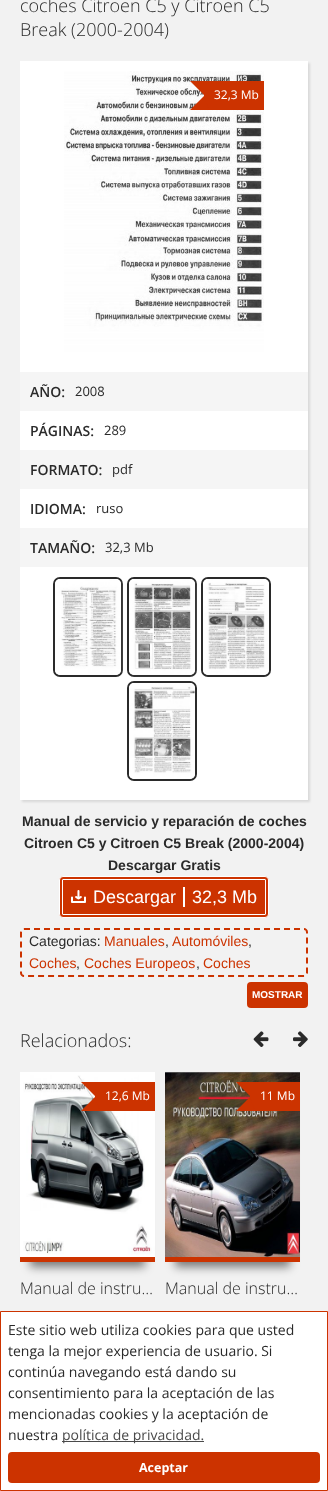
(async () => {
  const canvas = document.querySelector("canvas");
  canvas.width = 328;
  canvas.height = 1491;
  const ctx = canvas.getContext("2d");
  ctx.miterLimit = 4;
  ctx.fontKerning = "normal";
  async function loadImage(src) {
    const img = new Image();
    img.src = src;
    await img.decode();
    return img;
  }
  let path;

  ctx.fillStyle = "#f2f2f2";
  ctx.fillRect(0, 0, 328, 1491);
  ctx.fillStyle = "rgba(0, 0, 0, 0.1)";
  ctx.filter = "blur(1px)";
  ctx.beginPath();
  ctx.rect(22, 63, 288, 739);
  ctx.fill();
  ctx.filter = "none";
  ctx.fillStyle = "#ffffff";
  ctx.fillRect(20, 61, 288, 739);
  ctx.drawImage(await loadImage("img/1.png"), 64, 71, 200, 281);
  ctx.fillStyle = "#cc3300";
  ctx.fillRect(209, 81, 55, 29);
  path = new Path2D("M190 81H209L204 95Z");
  ctx.fill(path);
  ctx.fillRect(204, 81, 5, 29);
  path = new Path2D("M209 110H190L204 96Z");
  ctx.fill(path);
  ctx.fillStyle = "#f5f5f5";
  ctx.fillRect(20, 372, 288, 39);
  ctx.fillRect(20, 450, 288, 39);
  ctx.beginPath();
  ctx.roundRect(54, 578, 68, 98, 6);
  ctx.strokeStyle = "#2a2a2a";
  ctx.lineWidth = 2;
  ctx.stroke();
  ctx.drawImage(await loadImage("img/2.png"), 55, 579, 66, 96);
  ctx.fillStyle = "#ffffff";
  ctx.filter = "blur(3.5px)";
  ctx.beginPath();
  ctx.roundRect(127, 578, 70, 100, 7);
  ctx.fill();
  ctx.filter = "none";
  ctx.beginPath();
  ctx.roundRect(128, 578, 68, 98, 6);
  ctx.stroke();
  ctx.drawImage(await loadImage("img/3.png"), 129, 579, 66, 96);
  ctx.filter = "blur(3.5px)";
  ctx.beginPath();
  ctx.roundRect(201, 578, 70, 100, 7);
  ctx.fill();
  ctx.filter = "none";
  ctx.fillStyle = "#f5f5f5";
  ctx.fillRect(20, 528, 288, 39);
  ctx.beginPath();
  ctx.roundRect(202, 578, 68, 98, 6);
  ctx.stroke();
  ctx.drawImage(await loadImage("img/4.png"), 203, 579, 66, 96);
  ctx.fillStyle = "#ffffff";
  ctx.filter = "blur(3.5px)";
  ctx.beginPath();
  ctx.roundRect(127, 682, 70, 100, 7);
  ctx.fill();
  ctx.filter = "none";
  ctx.beginPath();
  ctx.roundRect(128, 682, 68, 98, 6);
  ctx.stroke();
  ctx.drawImage(await loadImage("img/5.png"), 129, 683, 66, 96);
  ctx.fillStyle = "#cc3300";
  ctx.beginPath();
  ctx.roundRect(59.5, 876.5, 209, 41, 3.5);
  ctx.fill();
  ctx.strokeStyle = "#ffffff";
  ctx.lineWidth = 1;
  ctx.stroke();
  ctx.beginPath();
  ctx.roundRect(62.5, 879.5, 203, 35, 0.5);
  ctx.stroke();
  ctx.drawImage(await loadImage("img/6.png"), 71, 890, 15, 13);
  ctx.fillStyle = "#ffffff";
  ctx.fillRect(183, 887, 2, 20);
  path = new Path2D("M24 929H304C305.5 929 307 930.5 307 932V973C307 974.5 305.5 976 304 976H24C22.5 976 21 974.5 21 973V932C21 930.5 22.5 929 24 929Z");
  ctx.strokeStyle = "#cc3300";
  ctx.lineWidth = 2;
  ctx.setLineDash([6, 4]);
  ctx.stroke(path);
  ctx.fillStyle = "#cc3300";
  ctx.beginPath();
  ctx.roundRect(247, 982, 61, 26, 4);
  ctx.fill();
  ctx.drawImage(await loadImage("img/7.png"), 253, 1031, 16, 16);
  ctx.drawImage(await loadImage("img/8.png"), 293, 1031, 15, 16);
  ctx.fillStyle = "rgba(0, 0, 0, 0.5)";
  ctx.filter = "blur(5px)";
  ctx.beginPath();
  ctx.rect(30, 1097, 115, 170);
  ctx.fill();
  ctx.filter = "none";
  ctx.fillStyle = "#cc3300";
  ctx.fillRect(20, 1257, 135, 5);
  ctx.drawImage(await loadImage("img/9.png"), 20, 1072, 135, 185);
  ctx.fillRect(100, 1082, 55, 29);
  path = new Path2D("M81 1082H100L95 1096Z");
  ctx.fill(path);
  ctx.fillRect(95, 1082, 5, 29);
  path = new Path2D("M100 1111H81L95 1097Z");
  ctx.fill(path);
  ctx.fillStyle = "rgba(0, 0, 0, 0.5)";
  ctx.filter = "blur(5px)";
  ctx.beginPath();
  ctx.rect(175, 1097, 115, 170);
  ctx.fill();
  ctx.filter = "none";
  ctx.fillStyle = "#cc3300";
  ctx.fillRect(165, 1257, 135, 5);
  ctx.drawImage(await loadImage("img/10.png"), 165, 1072, 135, 185);
  ctx.fillRect(255, 1082, 45, 29);
  path = new Path2D("M236 1082H255L250 1096Z");
  ctx.fill(path);
  ctx.fillRect(250, 1082, 5, 29);
  path = new Path2D("M255 1111H236L250 1097Z");
  ctx.fill(path);
  ctx.fillStyle = "#ffffff";
  ctx.beginPath();
  ctx.rect(0.5, 1311.5, 327, 179);
  ctx.fill();
  ctx.lineWidth = 1;
  ctx.setLineDash([]);
  ctx.stroke();
  ctx.fillStyle = "#4a4a4a";
  ctx.fillRect(62, 1441, 142, 1);
  ctx.fillStyle = "#cc3300";
  ctx.beginPath();
  ctx.roundRect(8, 1452, 312, 31, 4);
  ctx.fill();
  ctx.font = "300 18px Open Sans";
  ctx.fillStyle = "#2a2a2a";
  ctx.fillText("coches Citroen C5 y Citroen C5", 20, 12);
  ctx.fillText("Break (2000-2004)", 20, 36);
  ctx.font = "12px Open Sans";
  ctx.fillStyle = "#ffffff";
  ctx.fillText("32,3 Mb", 214, 99);
  ctx.font = "600 14px Open Sans";
  ctx.fillStyle = "#2a2a2a";
  ctx.fillText("AÑO:", 30, 397);
  ctx.font = "13px Open Sans";
  ctx.fillText("2008", 75, 396);
  ctx.font = "600 14px Open Sans";
  ctx.fillText("PÁGINAS:", 30, 436);
  ctx.font = "13px Open Sans";
  ctx.fillText("289", 104, 435);
  ctx.font = "600 14px Open Sans";
  ctx.fillText("FORMATO:", 30, 475);
  ctx.font = "13px Open Sans";
  ctx.fillText("pdf", 112, 474);
  ctx.font = "600 14px Open Sans";
  ctx.fillText("IDIOMA:", 30, 514);
  ctx.font = "13px Open Sans";
  ctx.fillText("ruso", 96, 513);
  ctx.font = "600 14px Open Sans";
  ctx.fillText("TAMAÑO:", 30, 553);
  ctx.font = "13px Open Sans";
  ctx.fillText("32,3 Mb", 105, 552);
  ctx.font = "bold 14px Liberation Sans";
  for (const [text, x, y] of [
    ["Manual de servicio y reparación de coches", 22, 826],
    ["Citroen C5 y Citroen C5 Break (2000-2004)", 24, 848],
    ["Descargar Gratis", 108, 870],
  ]) {
    ctx.fillText(text, x, y);
  }
  ctx.font = "18px Liberation Sans";
  ctx.fillStyle = "#ffffff";
  ctx.fillText("Descargar", 93, 903);
  ctx.fillText("32,3 Mb", 192, 903);
  ctx.font = "14px Liberation Sans";
  ctx.fillStyle = "#2a2a2a";
  ctx.fillText("Categorias:", 29, 946);
  ctx.fillStyle = "#cc3300";
  ctx.fillText("Manuales", 104, 946);
  ctx.fillStyle = "#2a2a2a";
  ctx.fillText(",", 165, 946);
  ctx.fillStyle = "#cc3300";
  ctx.fillText("Automóviles", 172, 946);
  ctx.fillStyle = "#2a2a2a";
  ctx.fillText(",", 248, 946);
  ctx.fillStyle = "#cc3300";
  ctx.fillText("Coches", 29, 968);
  ctx.fillStyle = "#2a2a2a";
  ctx.fillText(",", 76, 968);
  ctx.fillStyle = "#cc3300";
  ctx.fillText("Coches Europeos", 84, 968);
  ctx.fillStyle = "#2a2a2a";
  ctx.fillText(",", 196, 968);
  ctx.fillStyle = "#cc3300";
  ctx.fillText("Coches", 203, 968);
  ctx.font = "bold 10px Liberation Sans";
  ctx.fillStyle = "#ffffff";
  ctx.fillText("MOSTRAR", 252, 998);
  ctx.font = "300 18px Open Sans";
  ctx.fillStyle = "#2a2a2a";
  ctx.fillText("Relacionados:", 20, 1047);
  ctx.font = "12px Open Sans";
  ctx.fillStyle = "#ffffff";
  ctx.fillText("12,6 Mb", 105, 1100);
  ctx.font = "300 16px Open Sans";
  ctx.fillStyle = "#2a2a2a";
  ctx.fillText("Manual de instru…", 20, 1294);
  ctx.font = "12px Open Sans";
  ctx.fillStyle = "#ffffff";
  ctx.fillText("11 Mb", 260, 1100);
  ctx.font = "300 16px Open Sans";
  ctx.fillStyle = "#2a2a2a";
  ctx.fillText("Manual de instru…", 165, 1294);
  ctx.font = "14px Open Sans";
  for (const [text, x, y] of [
    ["Este sitio web utiliza cookies para que usted", 8, 1335],
    ["tenga la mejor experiencia de usuario. Si", 8, 1356],
    ["continúa navegando está dando su", 8, 1377],
    ["consentimiento para la aceptación de las", 8, 1398],
    ["mencionadas cookies y la aceptación de", 8, 1419],
    ["nuestra", 8, 1440],
  ]) {
    ctx.fillText(text, x, y);
  }
  ctx.fillStyle = "#4a4a4a";
  ctx.fillText("política de privacidad.", 62, 1440);
  ctx.font = "bold 12.5px Open Sans";
  ctx.fillStyle = "#ffffff";
  ctx.fillText("Aceptar", 139, 1472);
})();
